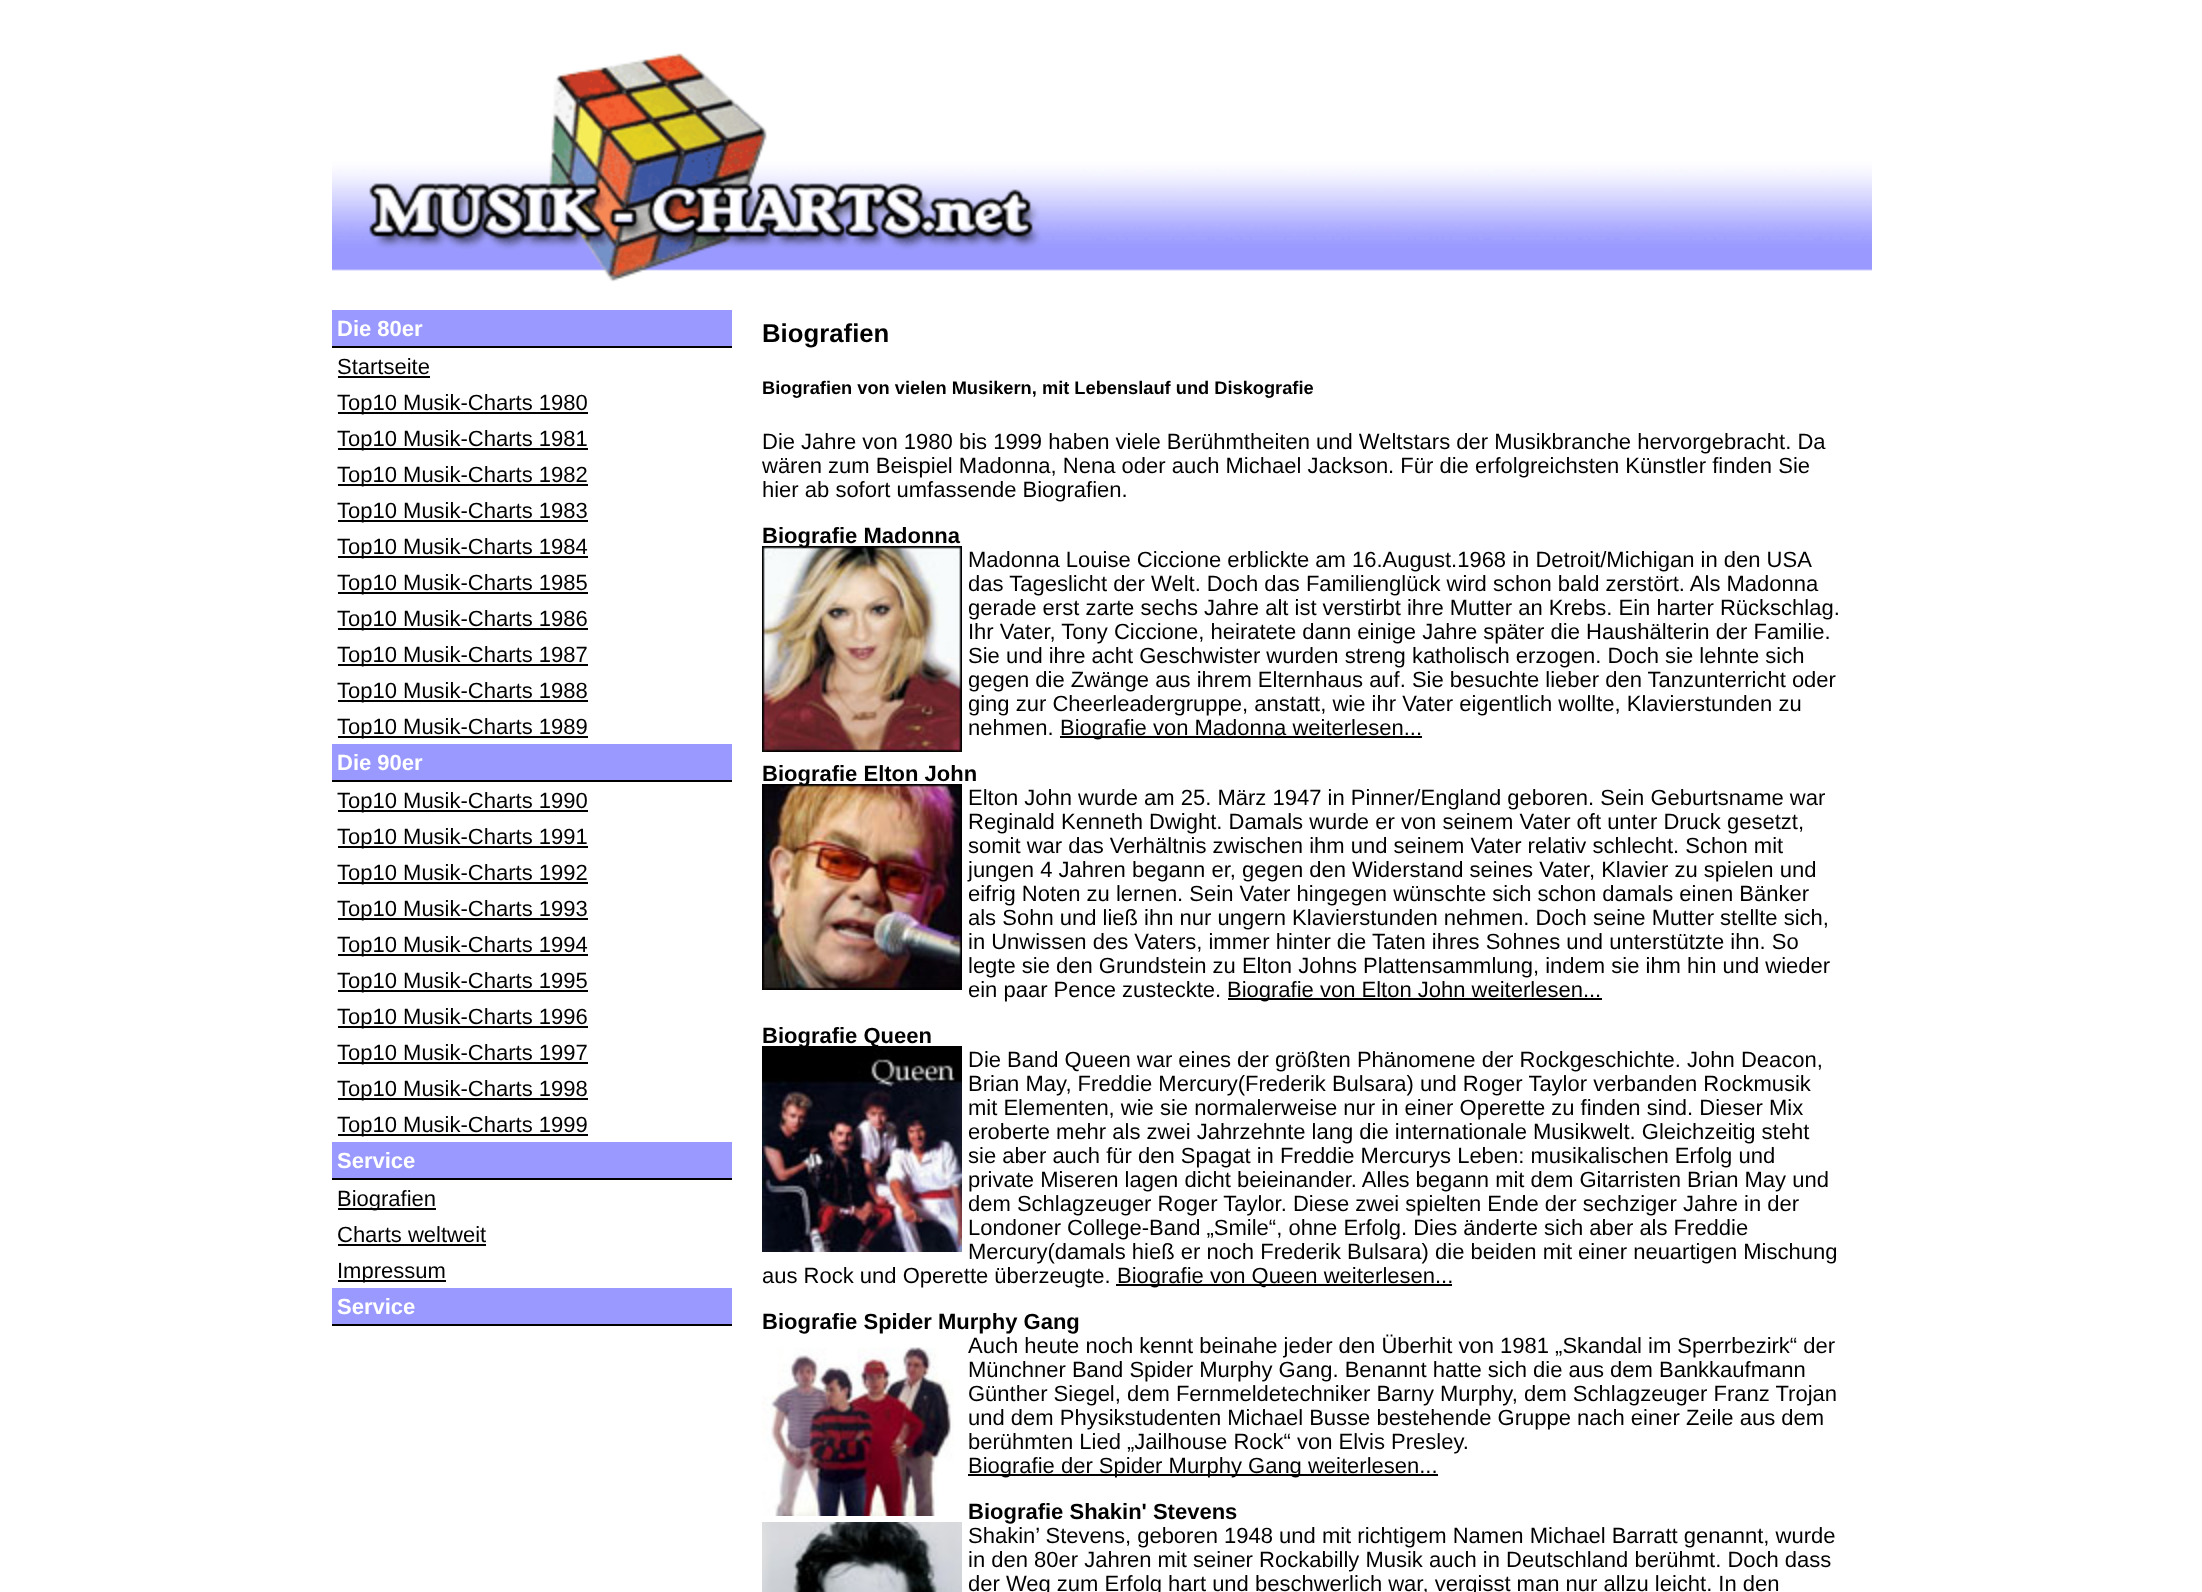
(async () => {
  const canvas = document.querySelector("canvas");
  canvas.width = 2202;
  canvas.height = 1592;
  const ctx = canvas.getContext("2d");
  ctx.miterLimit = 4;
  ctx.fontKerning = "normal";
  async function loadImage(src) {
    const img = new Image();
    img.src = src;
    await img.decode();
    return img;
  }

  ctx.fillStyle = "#ffffff";
  ctx.fillRect(0, 0, 2202, 1592);
  ctx.drawImage(await loadImage("img/1.png"), 332, 53, 1540, 229);
  for (const [x, y, w, h, color] of [
    [332, 310, 400, 36, "#9999ff"],
    [332, 346, 400, 2, "#000000"],
    [338, 376, 92, 2, "#000000"],
    [338, 412, 250, 2, "#000000"],
    [338, 448, 250, 2, "#000000"],
    [338, 484, 250, 2, "#000000"],
    [338, 520, 250, 2, "#000000"],
    [338, 556, 250, 2, "#000000"],
    [338, 592, 250, 2, "#000000"],
    [338, 628, 250, 2, "#000000"],
    [338, 664, 250, 2, "#000000"],
    [338, 700, 250, 2, "#000000"],
    [338, 736, 250, 2, "#000000"],
    [332, 744, 400, 36, "#9999ff"],
    [332, 780, 400, 2, "#000000"],
    [338, 810, 250, 2, "#000000"],
    [338, 846, 250, 2, "#000000"],
    [338, 882, 250, 2, "#000000"],
    [338, 918, 250, 2, "#000000"],
    [338, 954, 250, 2, "#000000"],
    [338, 990, 250, 2, "#000000"],
    [338, 1026, 250, 2, "#000000"],
    [338, 1062, 250, 2, "#000000"],
    [338, 1098, 250, 2, "#000000"],
    [338, 1134, 250, 2, "#000000"],
    [332, 1142, 400, 36, "#9999ff"],
    [332, 1178, 400, 2, "#000000"],
    [338, 1208, 98, 2, "#000000"],
    [338, 1244, 148, 2, "#000000"],
    [338, 1280, 108, 2, "#000000"],
    [332, 1288, 400, 36, "#9999ff"],
    [332, 1324, 400, 2, "#000000"],
  ]) {
    ctx.fillStyle = color;
    ctx.fillRect(x, y, w, h);
  }
  ctx.drawImage(await loadImage("img/2.png"), 762, 546, 200, 206);
  ctx.fillRect(1060, 736, 362, 2);
  ctx.drawImage(await loadImage("img/3.png"), 762, 784, 200, 206);
  ctx.fillRect(1228, 998, 374, 2);
  ctx.drawImage(await loadImage("img/4.png"), 762, 1046, 200, 206);
  ctx.fillRect(1116, 1284, 336, 2);
  ctx.drawImage(await loadImage("img/5.png"), 762, 1347, 192, 169);
  ctx.fillRect(968, 1474, 470, 2);
  ctx.drawImage(await loadImage("img/6.png"), 762, 1522, 200, 70);
  ctx.font = "bold 22px Liberation Sans";
  ctx.fillStyle = "#ffffff";
  ctx.fillText("Die 80er", 337, 336);
  ctx.font = "22px Liberation Sans";
  ctx.fillStyle = "#000000";
  for (const [text, x, y] of [
    ["Startseite", 337, 374],
    ["Top10 Musik-Charts 1980", 337, 410],
    ["Top10 Musik-Charts 1981", 337, 446],
    ["Top10 Musik-Charts 1982", 337, 482],
    ["Top10 Musik-Charts 1983", 337, 518],
    ["Top10 Musik-Charts 1984", 337, 554],
    ["Top10 Musik-Charts 1985", 337, 590],
    ["Top10 Musik-Charts 1986", 337, 626],
    ["Top10 Musik-Charts 1987", 337, 662],
    ["Top10 Musik-Charts 1988", 337, 698],
    ["Top10 Musik-Charts 1989", 337, 734],
  ]) {
    ctx.fillText(text, x, y);
  }
  ctx.font = "bold 22px Liberation Sans";
  ctx.fillStyle = "#ffffff";
  ctx.fillText("Die 90er", 337, 770);
  ctx.font = "22px Liberation Sans";
  ctx.fillStyle = "#000000";
  for (const [text, x, y] of [
    ["Top10 Musik-Charts 1990", 337, 808],
    ["Top10 Musik-Charts 1991", 337, 844],
    ["Top10 Musik-Charts 1992", 337, 880],
    ["Top10 Musik-Charts 1993", 337, 916],
    ["Top10 Musik-Charts 1994", 337, 952],
    ["Top10 Musik-Charts 1995", 337, 988],
    ["Top10 Musik-Charts 1996", 337, 1024],
    ["Top10 Musik-Charts 1997", 337, 1060],
    ["Top10 Musik-Charts 1998", 337, 1096],
    ["Top10 Musik-Charts 1999", 337, 1132],
  ]) {
    ctx.fillText(text, x, y);
  }
  ctx.font = "bold 22px Liberation Sans";
  ctx.fillStyle = "#ffffff";
  ctx.fillText("Service", 337, 1168);
  ctx.font = "22px Liberation Sans";
  ctx.fillStyle = "#000000";
  for (const [text, x, y] of [
    ["Biografien", 337, 1206],
    ["Charts weltweit", 337, 1242],
    ["Impressum", 337, 1278],
  ]) {
    ctx.fillText(text, x, y);
  }
  ctx.font = "bold 22px Liberation Sans";
  ctx.fillStyle = "#ffffff";
  ctx.fillText("Service", 337, 1314);
  ctx.font = "bold 25.75px Liberation Sans";
  ctx.fillStyle = "#000000";
  ctx.fillText("Biografien", 762, 342);
  ctx.font = "bold 18.25px Liberation Sans";
  ctx.fillText("Biografien von vielen Musikern, mit Lebenslauf und Diskografie", 762, 394);
  ctx.font = "22px Liberation Sans";
  for (const [text, x, y] of [
    ["Die Jahre von 1980 bis 1999 haben viele Berühmtheiten und Weltstars der Musikbranche hervorgebracht. Da", 762, 449],
    ["wären zum Beispiel Madonna, Nena oder auch Michael Jackson. Für die erfolgreichsten Künstler finden Sie", 762, 473],
    ["hier ab sofort umfassende Biografien.", 762, 497],
  ]) {
    ctx.fillText(text, x, y);
  }
  ctx.font = "bold 22px Liberation Sans";
  ctx.fillText("Biografie Madonna", 762, 543);
  ctx.font = "22px Liberation Sans";
  for (const [text, x, y] of [
    ["Madonna Louise Ciccione erblickte am 16.August.1968 in Detroit/Michigan in den USA", 968, 567],
    ["das Tageslicht der Welt. Doch das Familienglück wird schon bald zerstört. Als Madonna", 968, 591],
    ["gerade erst zarte sechs Jahre alt ist verstirbt ihre Mutter an Krebs. Ein harter Rückschlag.", 968, 615],
    ["Ihr Vater, Tony Ciccione, heiratete dann einige Jahre später die Haushälterin der Familie.", 968, 639],
    ["Sie und ihre acht Geschwister wurden streng katholisch erzogen. Doch sie lehnte sich", 968, 663],
    ["gegen die Zwänge aus ihrem Elternhaus auf. Sie besuchte lieber den Tanzunterricht oder", 968, 687],
    ["ging zur Cheerleadergruppe, anstatt, wie ihr Vater eigentlich wollte, Klavierstunden zu", 968, 711],
    ["nehmen.", 968, 735],
    ["Biografie von Madonna weiterlesen...", 1060, 735],
  ]) {
    ctx.fillText(text, x, y);
  }
  ctx.font = "bold 22px Liberation Sans";
  ctx.fillText("Biografie Elton John", 762, 781);
  ctx.font = "22px Liberation Sans";
  for (const [text, x, y] of [
    ["Elton John wurde am 25. März 1947 in Pinner/England geboren. Sein Geburtsname war", 968, 805],
    ["Reginald Kenneth Dwight. Damals wurde er von seinem Vater oft unter Druck gesetzt,", 968, 829],
    ["somit war das Verhältnis zwischen ihm und seinem Vater relativ schlecht. Schon mit", 968, 853],
    ["jungen 4 Jahren begann er, gegen den Widerstand seines Vater, Klavier zu spielen und", 968, 877],
    ["eifrig Noten zu lernen. Sein Vater hingegen wünschte sich schon damals einen Bänker", 968, 901],
    ["als Sohn und ließ ihn nur ungern Klavierstunden nehmen. Doch seine Mutter stellte sich,", 968, 925],
    ["in Unwissen des Vaters, immer hinter die Taten ihres Sohnes und unterstützte ihn. So", 968, 949],
    ["legte sie den Grundstein zu Elton Johns Plattensammlung, indem sie ihm hin und wieder", 968, 973],
    ["ein paar Pence zusteckte.", 968, 997],
    ["Biografie von Elton John weiterlesen...", 1227, 997],
  ]) {
    ctx.fillText(text, x, y);
  }
  ctx.font = "bold 22px Liberation Sans";
  ctx.fillText("Biografie Queen", 762, 1043);
  ctx.font = "22px Liberation Sans";
  for (const [text, x, y] of [
    ["Die Band Queen war eines der größten Phänomene der Rockgeschichte. John Deacon,", 968, 1067],
    ["Brian May, Freddie Mercury(Frederik Bulsara) und Roger Taylor verbanden Rockmusik", 968, 1091],
    ["mit Elementen, wie sie normalerweise nur in einer Operette zu finden sind. Dieser Mix", 968, 1115],
    ["eroberte mehr als zwei Jahrzehnte lang die internationale Musikwelt. Gleichzeitig steht", 968, 1139],
    ["sie aber auch für den Spagat in Freddie Mercurys Leben: musikalischen Erfolg und", 968, 1163],
    ["private Miseren lagen dicht beieinander. Alles begann mit dem Gitarristen Brian May und", 968, 1187],
    ["dem Schlagzeuger Roger Taylor. Diese zwei spielten Ende der sechziger Jahre in der", 968, 1211],
    ["Londoner College-Band „Smile“, ohne Erfolg. Dies änderte sich aber als Freddie", 968, 1235],
    ["Mercury(damals hieß er noch Frederik Bulsara) die beiden mit einer neuartigen Mischung", 968, 1259],
    ["aus Rock und Operette überzeugte.", 762, 1283],
    ["Biografie von Queen weiterlesen...", 1117, 1283],
  ]) {
    ctx.fillText(text, x, y);
  }
  ctx.font = "bold 22px Liberation Sans";
  ctx.fillText("Biografie Spider Murphy Gang", 762, 1329);
  ctx.font = "22px Liberation Sans";
  for (const [text, x, y] of [
    ["Auch heute noch kennt beinahe jeder den Überhit von 1981 „Skandal im Sperrbezirk“ der", 968, 1353],
    ["Münchner Band Spider Murphy Gang. Benannt hatte sich die aus dem Bankkaufmann", 968, 1377],
    ["Günther Siegel, dem Fernmeldetechniker Barny Murphy, dem Schlagzeuger Franz Trojan", 968, 1401],
    ["und dem Physikstudenten Michael Busse bestehende Gruppe nach einer Zeile aus dem", 968, 1425],
    ["berühmten Lied „Jailhouse Rock“ von Elvis Presley.", 968, 1449],
    ["Biografie der Spider Murphy Gang weiterlesen...", 968, 1473],
  ]) {
    ctx.fillText(text, x, y);
  }
  ctx.font = "bold 22px Liberation Sans";
  ctx.fillText("Biografie Shakin' Stevens", 968, 1519);
  ctx.font = "22px Liberation Sans";
  for (const [text, x, y] of [
    ["Shakin’ Stevens, geboren 1948 und mit richtigem Namen Michael Barratt genannt, wurde", 968, 1543],
    ["in den 80er Jahren mit seiner Rockabilly Musik auch in Deutschland berühmt. Doch dass", 968, 1567],
    ["der Weg zum Erfolg hart und beschwerlich war, vergisst man nur allzu leicht. In den", 968, 1591],
  ]) {
    ctx.fillText(text, x, y);
  }
})();
